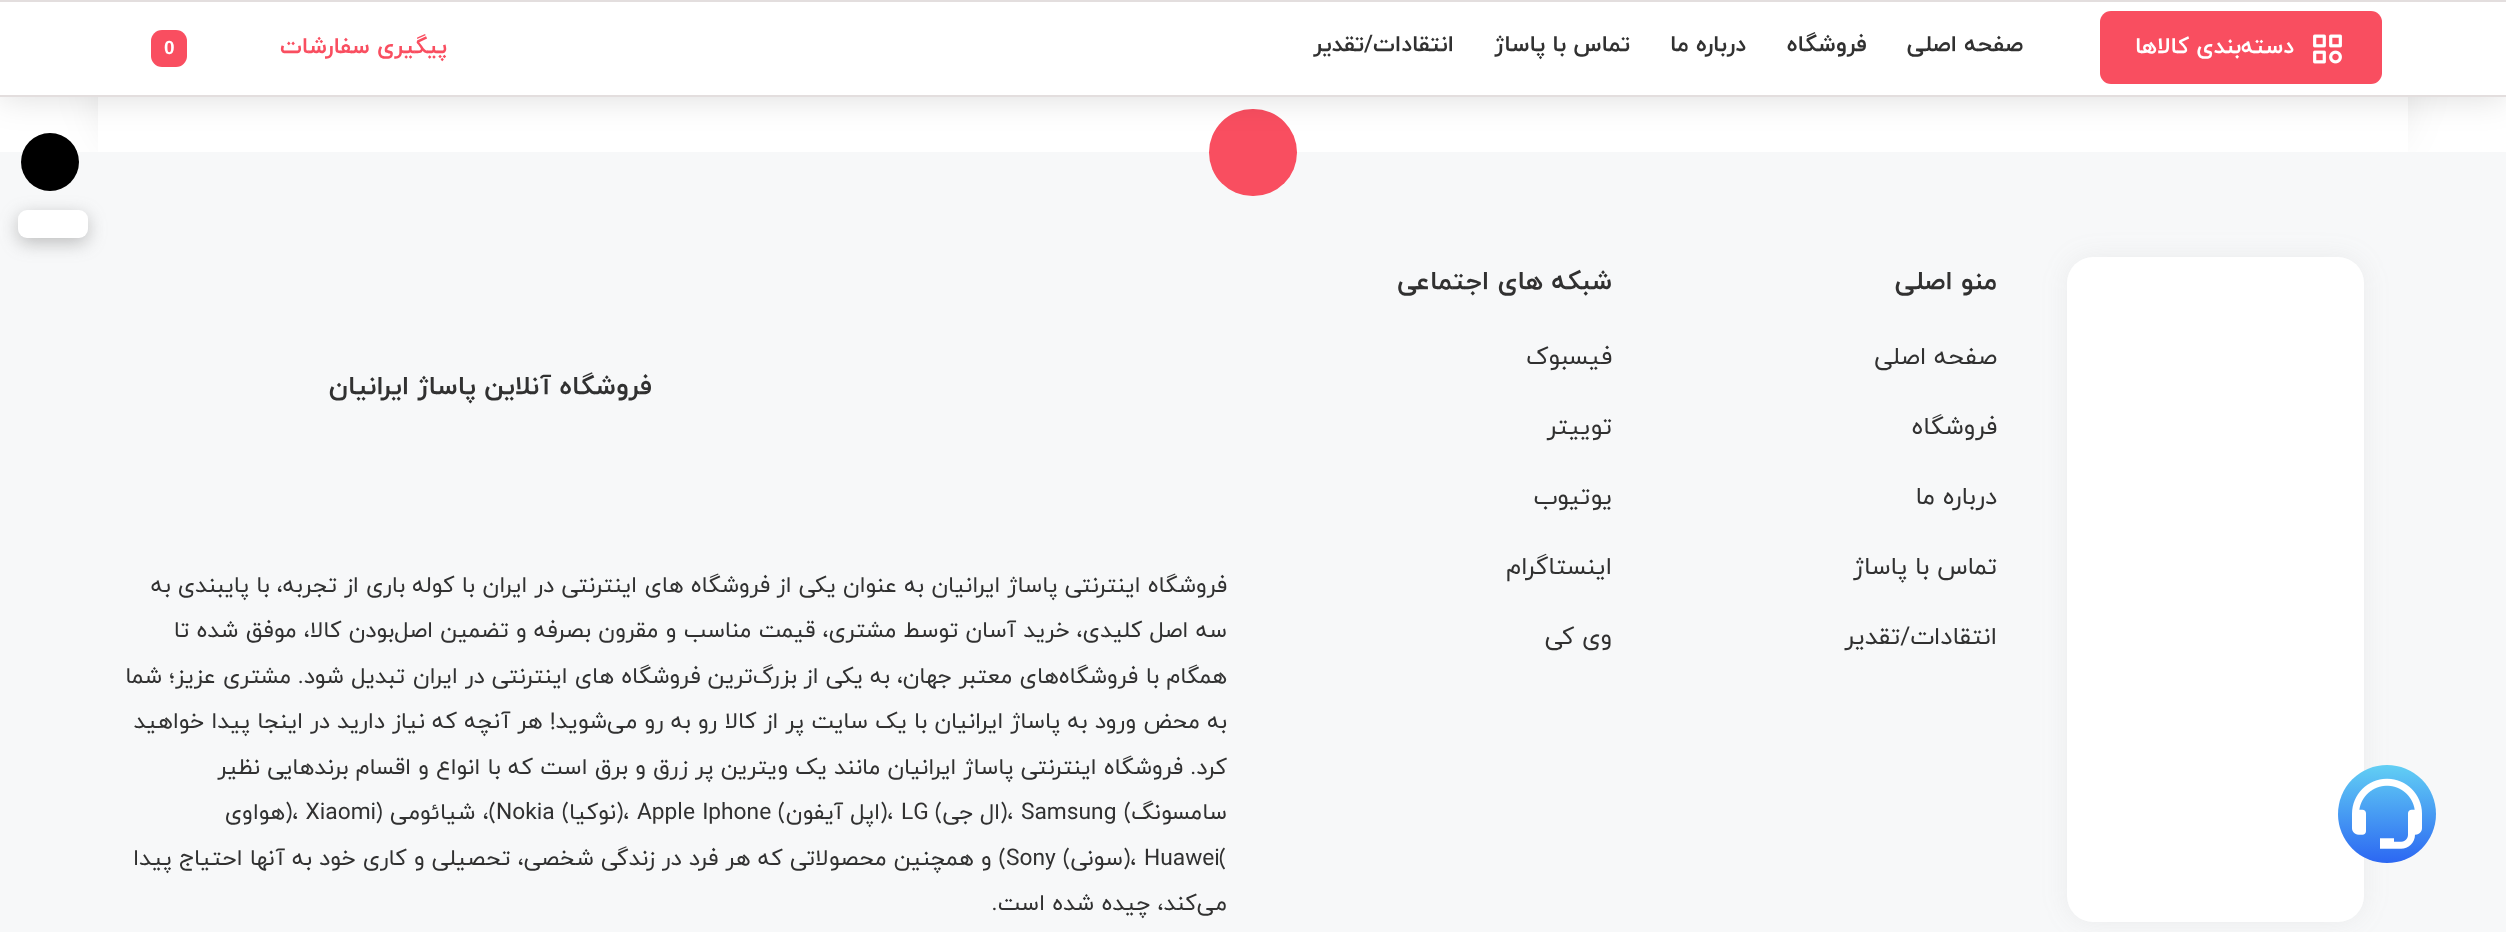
(async () => {
  const canvas = document.querySelector("canvas");
  canvas.width = 2506;
  canvas.height = 932;
  const ctx = canvas.getContext("2d");
  ctx.miterLimit = 4;
  ctx.fontKerning = "normal";
  async function loadImage(src) {
    const img = new Image();
    img.src = src;
    await img.decode();
    return img;
  }
  let gradient;

  ctx.fillStyle = "#ffffff";
  ctx.fillRect(0, 0, 2506, 932);
  ctx.fillStyle = "rgba(0, 0, 0, 0.08)";
  ctx.filter = "blur(22px)";
  ctx.beginPath();
  ctx.roundRect(98, -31, 2310, 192, 67);
  ctx.fill();
  ctx.filter = "none";
  ctx.fillStyle = "#ffffff";
  ctx.fillRect(98, 97, 2310, 55);
  ctx.fillStyle = "#f7f8f9";
  ctx.fillRect(0, 152, 2506, 780);
  ctx.fillStyle = "rgba(102, 102, 102, 0.4)";
  ctx.filter = "blur(9px)";
  ctx.beginPath();
  ctx.roundRect(18, 215, 70, 28, 9);
  ctx.fill();
  ctx.filter = "none";
  ctx.fillStyle = "#000000";
  ctx.beginPath();
  ctx.arc(50, 162, 29, 0, Math.PI * 2);
  ctx.fill();
  ctx.fillStyle = "#f94e60";
  ctx.beginPath();
  ctx.roundRect(1209, 109, 88, 87, 43.5);
  ctx.fill();
  ctx.fillStyle = "rgba(0, 0, 0, 0.15)";
  ctx.filter = "blur(17.5px)";
  ctx.beginPath();
  ctx.rect(0, 0, 2506, 96);
  ctx.fill();
  ctx.filter = "none";
  for (const [x, y, w, h, color] of [
    [0, 2, 2506, 93, "#ffffff"],
    [0, 0, 2506, 2, "#e3dede"],
    [0, 95, 2506, 2, "#e3dede"],
  ]) {
    ctx.fillStyle = color;
    ctx.fillRect(x, y, w, h);
  }
  ctx.fillStyle = "#f94e60";
  ctx.beginPath();
  ctx.roundRect(2100, 11, 282, 73, 11);
  ctx.fill();
  ctx.drawImage(await loadImage("img/1.png"), 2313, 34, 29, 30);
  ctx.beginPath();
  ctx.roundRect(151, 30, 36, 37, 11);
  ctx.fill();
  ctx.fillStyle = "#ffffff";
  ctx.beginPath();
  ctx.roundRect(18, 210, 70, 28, 9);
  ctx.fill();
  ctx.fillStyle = "rgba(128, 128, 128, 0.1)";
  ctx.filter = "blur(13px)";
  ctx.beginPath();
  ctx.roundRect(2067, 257, 297, 665, 26);
  ctx.fill();
  ctx.filter = "none";
  ctx.fillStyle = "#ffffff";
  ctx.beginPath();
  ctx.roundRect(2067, 257, 297, 665, 26);
  ctx.fill();
  gradient = ctx.createLinearGradient(2387, 765, 2387, 863);
  gradient.addColorStop(0, "#62cff4");
  gradient.addColorStop(1, "#2c67f2");
  ctx.fillStyle = gradient;
  ctx.beginPath();
  ctx.arc(2387, 814, 49, 0, Math.PI * 2);
  ctx.fill();
  ctx.drawImage(await loadImage("img/2.png"), 2352, 778, 70, 71);
  ctx.direction = "rtl";
  ctx.font = "bold 22.75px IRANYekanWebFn";
  ctx.fillStyle = "#ffffff";
  ctx.fillText("دسته‌بندی کالاها", 2294, 53);
  ctx.fillStyle = "#313131";
  for (const [text, x, y] of [
    ["صفحه اصلی", 2023, 51],
    ["فروشگاه", 1867, 51],
    ["درباره ما", 1746, 51],
    ["تماس با پاساژ", 1630, 51],
    ["انتقادات/تقدیر", 1454, 51],
  ]) {
    ctx.fillText(text, x, y);
  }
  ctx.fillStyle = "#f94e60";
  ctx.fillText("پیگیری سفارشات", 447, 53);
  ctx.direction = "ltr";
  ctx.font = "bold 19px Liberation Sans";
  ctx.fillStyle = "#ffffff";
  ctx.fillText("0", 164, 54);
  ctx.direction = "rtl";
  ctx.font = "bold 26.25px IRANYekanWebFn";
  ctx.fillStyle = "#313131";
  ctx.fillText("منو اصلی", 1997, 289);
  ctx.font = "24.5px IRANYekanWebFn";
  for (const [text, x, y] of [
    ["صفحه اصلی", 1997, 364],
    ["فروشگاه", 1997, 434],
    ["درباره ما", 1997, 504],
    ["تماس با پاساژ", 1997, 574],
    ["انتقادات/تقدیر", 1997, 644],
  ]) {
    ctx.fillText(text, x, y);
  }
  ctx.font = "bold 26.25px IRANYekanWebFn";
  ctx.fillText("شبکه های اجتماعی", 1612, 289);
  ctx.font = "24.5px IRANYekanWebFn";
  for (const [text, x, y] of [
    ["فیسبوک", 1612, 364],
    ["توییتر", 1612, 434],
    ["یوتیوب", 1612, 504],
    ["اینستاگرام", 1612, 574],
    ["وی کی", 1612, 644],
  ]) {
    ctx.fillText(text, x, y);
  }
  ctx.font = "bold 26.25px IRANYekanWebFn";
  ctx.fillText("فروشگاه آنلاین پاساژ ایرانیان", 652, 394);
  ctx.font = "22.75px IRANYekanWebFn";
  for (const [text, x, y] of [
    ["فروشگاه اینترنتی پاساژ ایرانیان", 1227, 592],
    ["به عنوان یکی از", 924, 592],
    ["فروشگاه های اینترنتی در ایران", 770, 592],
    ["با کوله باری از تجربه، با پایبندی به", 475, 592],
    ["سه اصل کلیدی، خرید آسان توسط مشتری، قیمت مناسب و مقرون بصرفه و تضمین اصل‌بودن کالا، موفق شده تا", 1227, 637],
    ["همگام با", 1227, 683],
    ["فروشگاه‌های معتبر جهان", 1138, 683],
    ["، به یکی از", 903, 683],
    ["بزرگ‌ترین فروشگاه های اینترنتی در ایران", 797, 683],
    ["تبدیل شود.", 405, 683],
    ["مشتری عزیز؛ شما", 291, 683],
    ["به محض ورود به پاساژ ایرانیان با یک", 1227, 728],
    ["سایت پر از کالا", 868, 728],
    ["رو به رو می‌شوید! هر آنچه که نیاز دارید در", 717, 728],
    ["اینجا", 303, 728],
    ["پیدا خواهید", 250, 728],
    ["کرد.", 1227, 774],
    ["فروشگاه اینترنتی پاساژ ایرانیان مانند یک ویترین پر زرق و برق است که با انواع و اقسام برندهایی نظیر", 1183, 774],
    ["سامسونگ", 1227, 819],
  ]) {
    ctx.fillText(text, x, y);
  }
  ctx.direction = "ltr";
  for (const [text, x, y] of [
    ["(", 1124, 819],
    ["Samsung", 1021, 819],
    [")،", 1000, 819],
  ]) {
    ctx.fillText(text, x, y);
  }
  ctx.direction = "rtl";
  ctx.fillText("ال جی", 1000, 819);
  ctx.direction = "ltr";
  for (const [text, x, y] of [
    ["(", 935, 819],
    ["LG", 901, 819],
    [")،", 880, 819],
  ]) {
    ctx.fillText(text, x, y);
  }
  ctx.direction = "rtl";
  ctx.fillText("اپل آیفون", 880, 819);
  ctx.direction = "ltr";
  for (const [text, x, y] of [
    ["(", 778, 819],
    ["Apple Iphone", 637, 819],
    [")،", 616, 819],
  ]) {
    ctx.fillText(text, x, y);
  }
  ctx.direction = "rtl";
  ctx.fillText("نوکیا", 616, 819);
  ctx.direction = "ltr";
  ctx.fillText("(", 562, 819);
  ctx.fillText("Nokia", 496, 819);
  ctx.direction = "rtl";
  ctx.fillText(")، شیائومی (", 496, 819);
  ctx.direction = "ltr";
  ctx.fillText(")، Xiaomi", 285, 819);
  ctx.direction = "rtl";
  ctx.fillText("هواوی", 285, 819);
  ctx.direction = "ltr";
  for (const [text, x, y] of [
    ["(", 1219, 865],
    ["Huawei", 1144, 865],
    [")،", 1123, 865],
  ]) {
    ctx.fillText(text, x, y);
  }
  ctx.direction = "rtl";
  ctx.fillText("سونی", 1123, 865);
  ctx.direction = "ltr";
  ctx.fillText("(", 1063, 865);
  ctx.fillText("Sony", 1006, 865);
  ctx.direction = "rtl";
  ctx.fillText(") و همچنین محصولاتی که هر فرد در زندگی شخصی، تحصیلی و کاری خود به آنها احتیاج پیدا", 1006, 865);
  ctx.fillText("می‌کند، چیده شده است.", 1227, 910);
})();
